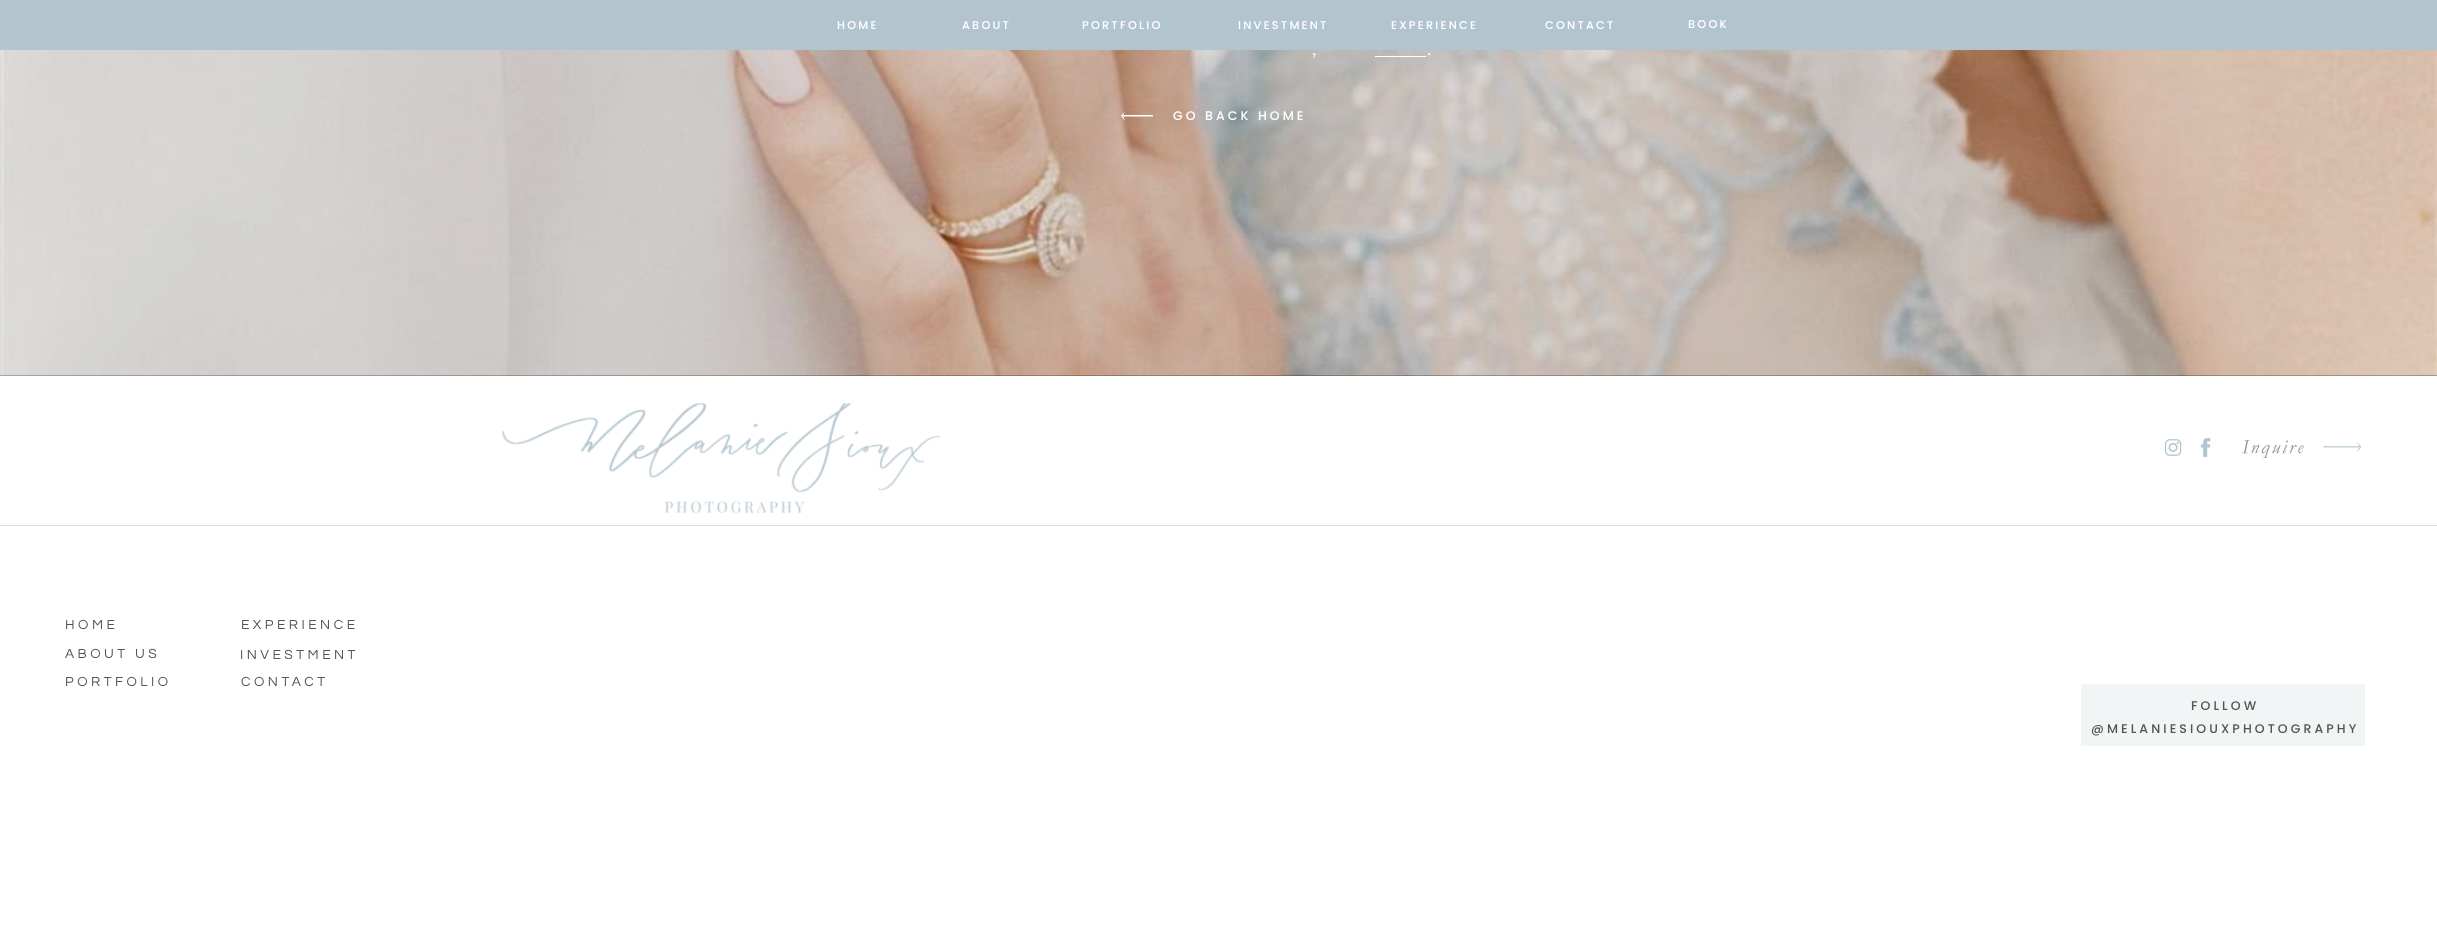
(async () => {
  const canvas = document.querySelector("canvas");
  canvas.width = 2437;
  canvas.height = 930;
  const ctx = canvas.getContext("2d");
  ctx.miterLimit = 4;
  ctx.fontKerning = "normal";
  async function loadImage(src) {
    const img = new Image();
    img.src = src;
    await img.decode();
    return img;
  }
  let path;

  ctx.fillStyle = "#ffffff";
  ctx.fillRect(0, 0, 2437, 930);
  ctx.fillStyle = "#b2c4ce";
  ctx.fillRect(0, 0, 2437, 50);
  ctx.fillStyle = "#000000";
  ctx.fillRect(0, 50, 2437, 326);
  ctx.drawImage(await loadImage("img/1.png"), 0, 50, 2437, 326);
  ctx.fillStyle = "#ffffff";
  ctx.fillRect(1375, 56, 51, 1);
  path = new Path2D("M1125 120L1123 116.5H1153V115H1123L1125 111.5L1124.5 112L1121 115.5L1123.5 119Z");
  ctx.fill(path);
  ctx.drawImage(await loadImage("img/2.png"), 502, 403, 438, 111);
  ctx.drawImage(await loadImage("img/3.png"), 2165, 439, 17, 17);
  ctx.drawImage(await loadImage("img/4.png"), 2200, 438, 11, 19);
  ctx.fillStyle = "#c5d3da";
  path = new Path2D("M2356.5 442L2359 446H2323.5V447.5H2359L2356.5 452C2357 452.5 2361.5 447.5 2361.5 447C2361.5 446.5 2357 441.5 2356.5 442Z");
  ctx.fill(path);
  ctx.fillStyle = "#dddddd";
  ctx.fillRect(0, 525, 2437, 1);
  ctx.fillStyle = "#f2f5f6";
  ctx.fillRect(2081, 684, 284, 62);
  ctx.letterSpacing = "2.25px";
  ctx.font = "500 11.25px Poppins";
  ctx.fillStyle = "#ffffff";
  for (const [text, x, y] of [
    ["HOME", 837, 29],
    ["ABOUT", 962, 29],
    ["PORTFOLIO", 1082, 29],
    ["INVESTMENT", 1238, 29],
    ["EXPERIENCE", 1391, 29],
    ["CONTACT", 1545, 29],
    ["BOOK", 1688, 28],
  ]) {
    ctx.fillText(text, x, y);
  }
  ctx.letterSpacing = "1px";
  ctx.font = "16px Libre Baskerville";
  ctx.fillText(",", 1312, 55);
  ctx.fillText(".", 1427, 55);
  ctx.letterSpacing = "3.1px";
  ctx.font = "500 12.5px Poppins";
  ctx.fillText("GO BACK HOME", 1173, 120);
  ctx.letterSpacing = "2px";
  ctx.font = "italic 20px Garamond";
  ctx.fillStyle = "#939393";
  ctx.fillText("Inquire", 2242, 453);
  ctx.letterSpacing = "3.5px";
  ctx.font = "13.75px Questrial";
  ctx.fillStyle = "#545454";
  for (const [text, x, y] of [
    ["HOME", 65, 629],
    ["EXPERIENCE", 241, 629],
    ["ABOUT US", 65, 658],
    ["INVESTMENT", 240, 659],
    ["PORTFOLIO", 65, 686],
    ["CONTACT", 241, 686],
  ]) {
    ctx.fillText(text, x, y);
  }
  ctx.letterSpacing = "3.1px";
  ctx.font = "500 12.5px Poppins";
  ctx.fillText("FOLLOW", 2191, 710);
  ctx.fillText("@MELANIESIOUXPHOTOGRAPHY", 2091, 733);
})();
